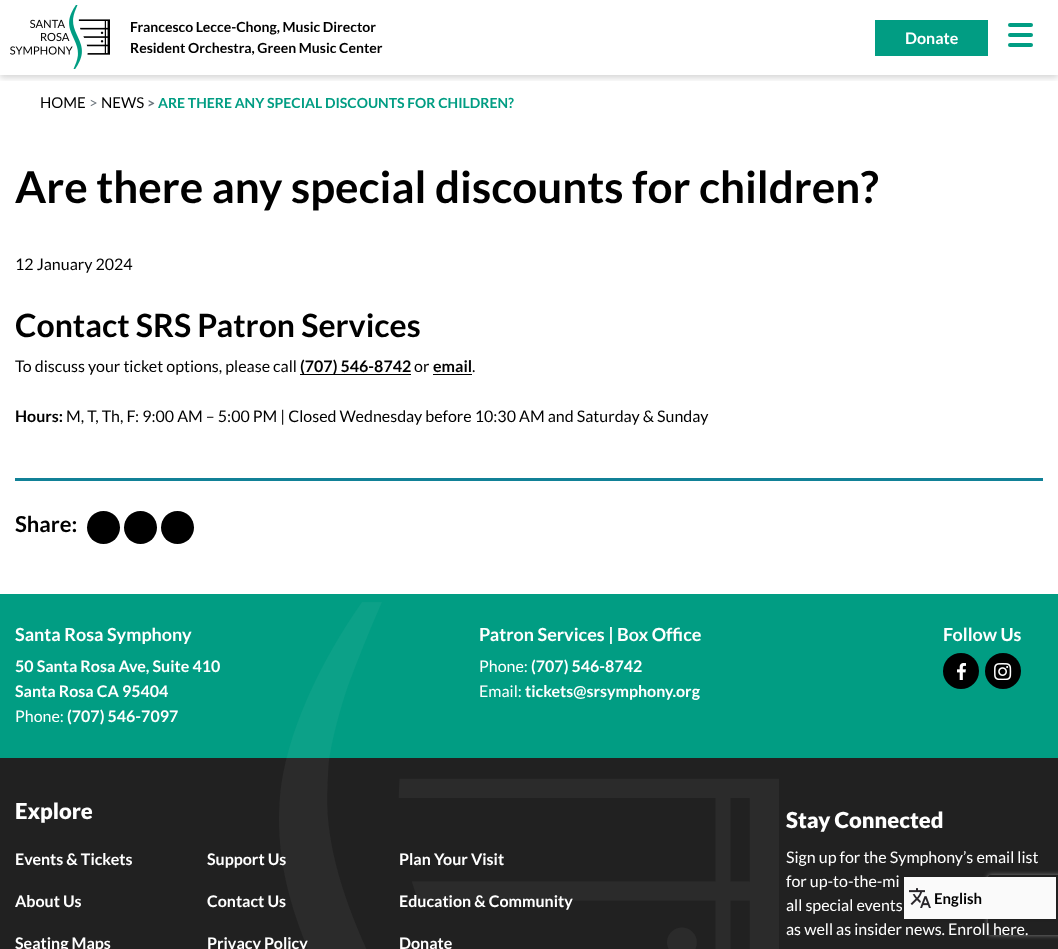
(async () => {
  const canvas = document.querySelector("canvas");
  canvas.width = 1058;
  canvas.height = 949;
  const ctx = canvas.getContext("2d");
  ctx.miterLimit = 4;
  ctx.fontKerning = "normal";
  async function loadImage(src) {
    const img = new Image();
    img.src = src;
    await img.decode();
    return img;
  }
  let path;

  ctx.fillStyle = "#ffffff";
  ctx.fillRect(0, 0, 1058, 949);
  ctx.save();
  ctx.beginPath();
  ctx.rect(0, 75, 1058, 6);
  ctx.clip();
  ctx.fillStyle = "rgba(0, 0, 0, 0.16)";
  ctx.filter = "blur(3px)";
  ctx.beginPath();
  ctx.rect(0, 3, 1058, 75);
  ctx.fill();
  ctx.filter = "none";
  ctx.restore();
  ctx.drawImage(await loadImage("img/1.png"), 10, 5, 100, 64);
  ctx.fillStyle = "#019d83";
  ctx.fillRect(875, 20, 113, 36);
  ctx.beginPath();
  ctx.roundRect(1008, 23, 25, 4, 2);
  ctx.fill();
  ctx.beginPath();
  ctx.roundRect(1008, 33, 25, 4, 2);
  ctx.fill();
  ctx.beginPath();
  ctx.roundRect(1008, 43, 25, 4, 2);
  ctx.fill();
  ctx.fillStyle = "#212121";
  ctx.fillRect(0, 758, 1058, 191);
  ctx.fillStyle = "rgba(0, 0, 0, 0.16)";
  ctx.filter = "blur(1.5px)";
  ctx.beginPath();
  ctx.rect(904, 877, 152, 42);
  ctx.fill();
  ctx.filter = "none";
  ctx.save();
  path = new Path2D("M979 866H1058V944H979ZM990 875H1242C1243 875 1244 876 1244 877V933C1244 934 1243 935 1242 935H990C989 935 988 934 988 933V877C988 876 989 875 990 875Z");
  ctx.clip(path, "evenodd");
  ctx.fillStyle = "#808080";
  ctx.filter = "blur(2.5px)";
  ctx.beginPath();
  ctx.roundRect(988, 875, 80, 60, 2);
  ctx.fill();
  ctx.filter = "none";
  ctx.restore();
  ctx.fillStyle = "#fafafa";
  ctx.fillRect(904, 877, 152, 42);
  ctx.drawImage(await loadImage("img/2.png"), 909, 888, 22, 20);
  for (const [x, y, w, h, color] of [
    [300, 374, 111, 1, "#000000"],
    [433, 374, 39, 1, "#000000"],
    [15, 478, 1028, 3, "#118197"],
  ]) {
    ctx.fillStyle = color;
    ctx.fillRect(x, y, w, h);
  }
  ctx.fillStyle = "#000000";
  ctx.beginPath();
  ctx.arc(103.5, 527.5, 16.5, 0, Math.PI * 2);
  ctx.fill();
  ctx.beginPath();
  ctx.arc(140.5, 527.5, 16.5, 0, Math.PI * 2);
  ctx.fill();
  ctx.beginPath();
  ctx.arc(177.5, 527.5, 16.5, 0, Math.PI * 2);
  ctx.fill();
  ctx.fillStyle = "#019d83";
  ctx.fillRect(0, 594, 1058, 164);
  ctx.drawImage(await loadImage("img/3.png"), 279, 602, 500, 347);
  ctx.fillStyle = "#000000";
  ctx.beginPath();
  ctx.arc(961, 671, 18, 0, Math.PI * 2);
  ctx.fill();
  ctx.drawImage(await loadImage("img/4.png"), 957, 663, 9, 17);
  ctx.beginPath();
  ctx.arc(1003, 671, 18, 0, Math.PI * 2);
  ctx.fill();
  ctx.drawImage(await loadImage("img/5.png"), 994, 663, 18, 17);
  ctx.font = "bold 14px Lato";
  ctx.fillText("Francesco Lecce-Chong, Music Director", 130, 32);
  ctx.fillText("Resident Orchestra, Green Music Center", 130, 53);
  ctx.font = "bold 16px Lato";
  ctx.fillStyle = "#ffffff";
  ctx.fillText("Donate", 905, 44);
  ctx.font = "bold 15px Lato";
  ctx.fillStyle = "#000000";
  ctx.fillText("English", 934, 904);
  ctx.font = "15px Lato";
  ctx.fillText("HOME", 40, 108);
  ctx.fillStyle = "#6c757d";
  ctx.fillText(">", 89, 108);
  ctx.fillStyle = "#000000";
  ctx.fillText("NEWS", 101, 108);
  ctx.font = "bold 14px Lato";
  ctx.fillStyle = "#6c757d";
  ctx.fillText(">", 147, 108);
  ctx.fillStyle = "#019d83";
  ctx.fillText("ARE THERE ANY SPECIAL DISCOUNTS FOR CHILDREN?", 158, 108);
  ctx.font = "bold 44px Lato";
  ctx.fillStyle = "#000000";
  ctx.fillText("Are there any special discounts for children?", 15, 203);
  ctx.font = "16px Lato";
  ctx.fillText("12 January 2024", 15, 270);
  ctx.font = "bold 32px Lato";
  ctx.fillText("Contact SRS Patron Services", 15, 337);
  ctx.font = "16px Lato";
  ctx.fillText("To discuss your ticket options, please call", 15, 372);
  ctx.font = "bold 16px Lato";
  ctx.fillText("(707) 546-8742", 300, 372);
  ctx.font = "16px Lato";
  ctx.fillText("or", 414, 372);
  ctx.font = "bold 16px Lato";
  ctx.fillText("email", 433, 372);
  ctx.font = "16px Lato";
  ctx.fillText(".", 472, 372);
  ctx.font = "bold 16px Lato";
  ctx.fillText("Hours:", 15, 422);
  ctx.font = "16px Lato";
  ctx.fillText("M, T, Th, F: 9:00 AM – 5:00 PM | Closed Wednesday before 10:30 AM and Saturday & Sunday", 66, 422);
  ctx.font = "bold 22px Lato";
  ctx.fillText("Share:", 15, 532);
  ctx.font = "bold 18px Lato";
  ctx.fillStyle = "#ffffff";
  ctx.fillText("Santa Rosa Symphony", 15, 641);
  ctx.font = "bold 16px Lato";
  ctx.fillText("50 Santa Rosa Ave, Suite 410", 15, 672);
  ctx.fillText("Santa Rosa CA 95404", 15, 697);
  ctx.font = "16px Lato";
  ctx.fillText("Phone:", 15, 722);
  ctx.font = "bold 16px Lato";
  ctx.fillText("(707) 546-7097", 67, 722);
  ctx.font = "bold 18px Lato";
  ctx.fillText("Patron Services | Box Office", 479, 641);
  ctx.font = "16px Lato";
  ctx.fillText("Phone:", 479, 672);
  ctx.font = "bold 16px Lato";
  ctx.fillText("(707) 546-8742", 531, 672);
  ctx.font = "16px Lato";
  ctx.fillText("Email:", 479, 697);
  ctx.font = "bold 16px Lato";
  ctx.fillText("tickets@srsymphony.org", 525, 697);
  ctx.font = "bold 18px Lato";
  ctx.fillText("Follow Us", 943, 641);
  ctx.font = "900 22px Lato";
  ctx.fillText("Explore", 15, 819);
  ctx.font = "bold 16px Lato";
  for (const [text, x, y] of [
    ["Events & Tickets", 15, 865],
    ["Support Us", 207, 865],
    ["Plan Your Visit", 399, 865],
    ["About Us", 15, 907],
    ["Contact Us", 207, 907],
    ["Education & Community", 399, 907],
    ["Seating Maps", 15, 949],
    ["Privacy Policy", 207, 949],
    ["Donate", 399, 949],
  ]) {
    ctx.fillText(text, x, y);
  }
  ctx.font = "900 22px Lato";
  ctx.fillText("Stay Connected", 786, 828);
  ctx.font = "16px Lato";
  for (const [text, x, y] of [
    ["Sign up for the Symphony’s email list", 786, 863],
    ["for up-to-the-mi", 786, 887],
    ["all special events", 786, 911],
    ["as well as insider news. Enroll here.", 786, 935],
  ]) {
    ctx.fillText(text, x, y);
  }
})();
